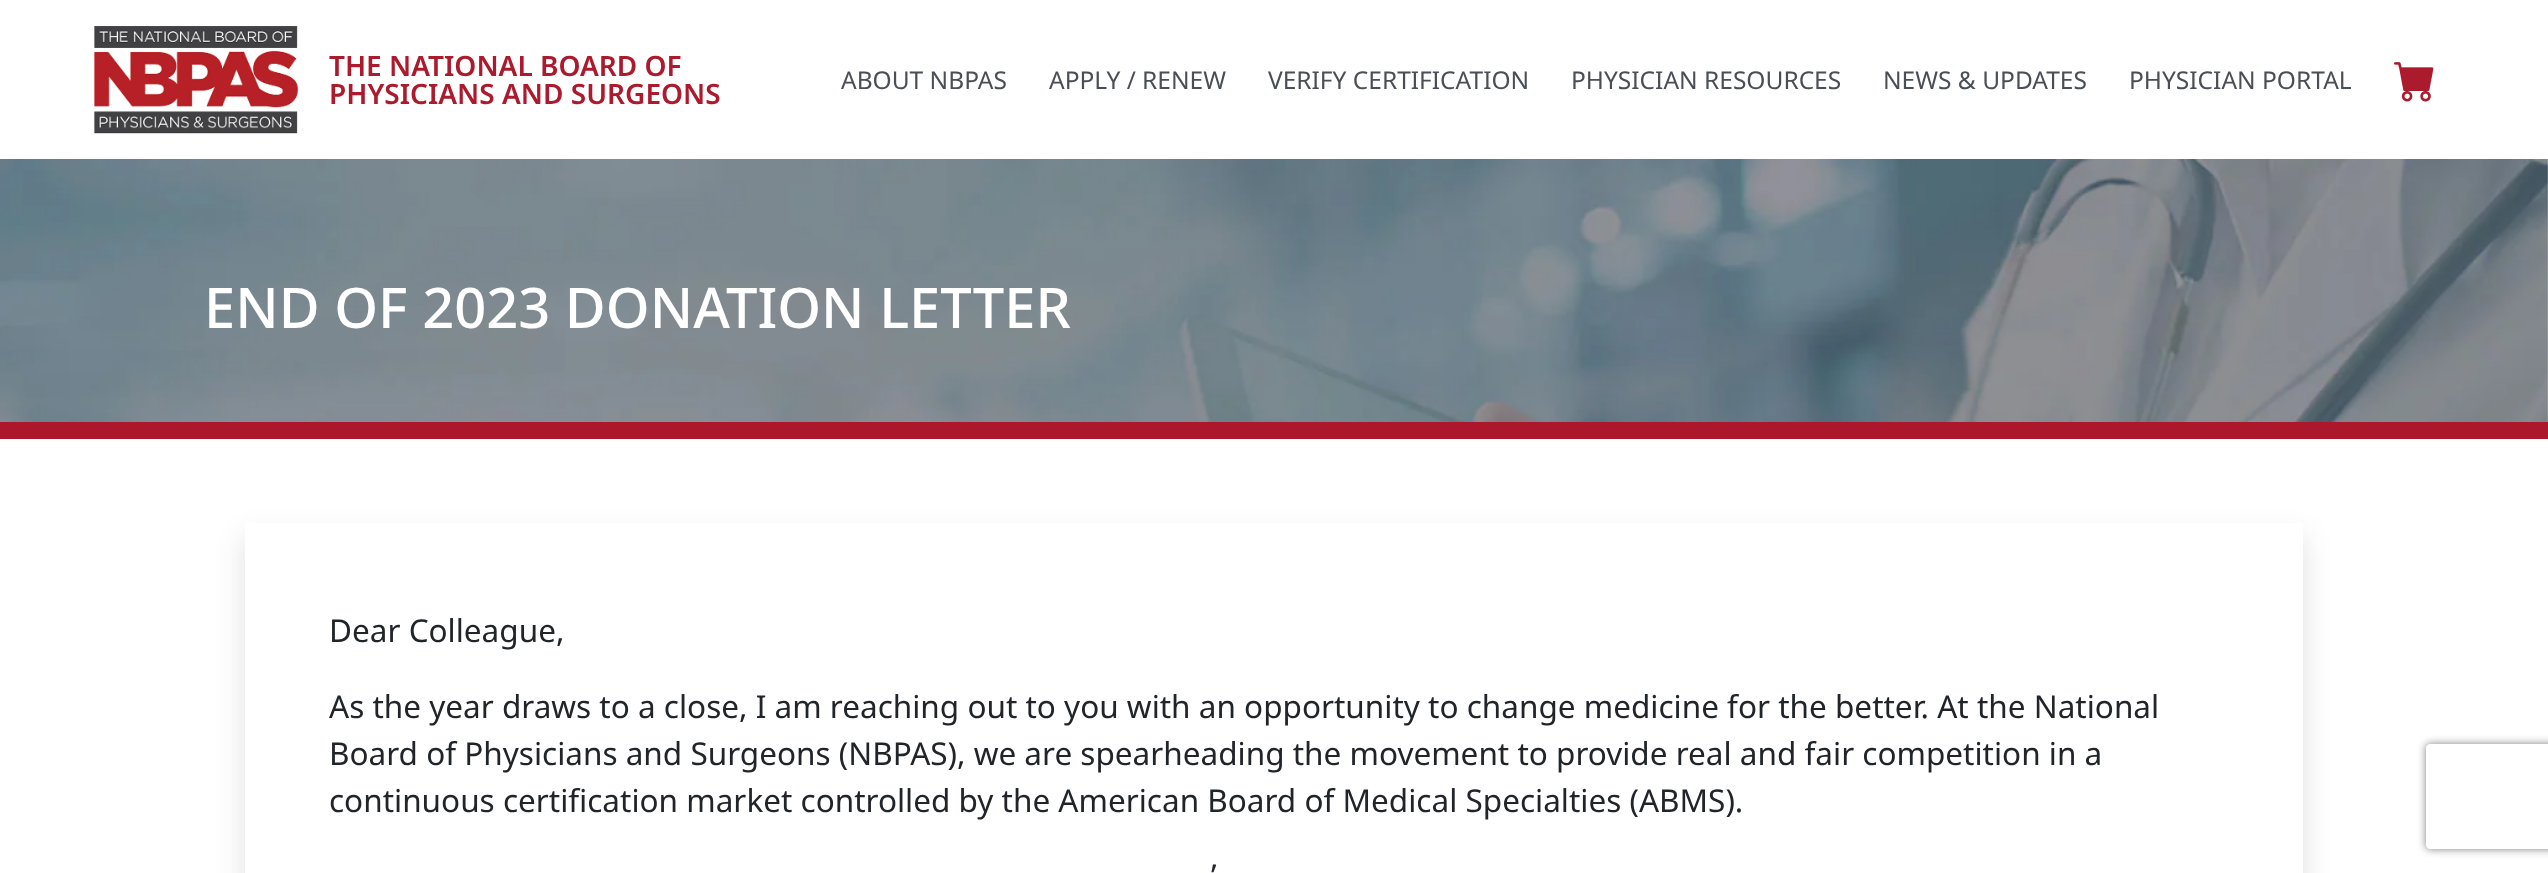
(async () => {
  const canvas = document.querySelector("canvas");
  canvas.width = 2548;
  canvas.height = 873;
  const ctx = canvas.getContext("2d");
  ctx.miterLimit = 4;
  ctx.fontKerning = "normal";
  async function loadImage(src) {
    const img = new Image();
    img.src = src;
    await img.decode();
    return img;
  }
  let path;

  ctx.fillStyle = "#ffffff";
  ctx.fillRect(0, 0, 2548, 873);
  ctx.drawImage(await loadImage("img/1.png"), 93, 25, 206, 109);
  ctx.drawImage(await loadImage("img/2.png"), 2394, 62, 40, 40);
  ctx.fillStyle = "#ad172b";
  ctx.fillRect(0, 422, 2548, 17);
  ctx.drawImage(await loadImage("img/3.png"), 0, 159, 2548, 263);
  ctx.save();
  path = new Path2D("M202 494H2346V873H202ZM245 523H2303V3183H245Z");
  ctx.clip(path, "evenodd");
  ctx.fillStyle = "rgba(33, 37, 41, 0.15)";
  ctx.filter = "blur(14px)";
  ctx.beginPath();
  ctx.rect(245, 537, 2058, 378);
  ctx.fill();
  ctx.filter = "none";
  ctx.restore();
  ctx.save();
  path = new Path2D("M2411 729H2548V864H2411ZM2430 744H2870C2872 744 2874 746 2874 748V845C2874 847 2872 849 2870 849H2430C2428 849 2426 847 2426 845V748C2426 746 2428 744 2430 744Z");
  ctx.clip(path, "evenodd");
  ctx.fillStyle = "#808080";
  ctx.filter = "blur(4.5px)";
  ctx.beginPath();
  ctx.roundRect(2426, 744, 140, 105, 4);
  ctx.fill();
  ctx.filter = "none";
  ctx.restore();
  ctx.font = "600 28px Noto Sans";
  ctx.fillStyle = "#ab1a2d";
  ctx.fillText("THE NATIONAL BOARD OF", 329, 76);
  ctx.fillText("PHYSICIANS AND SURGEONS", 329, 104);
  ctx.font = "24.5px Noto Sans";
  ctx.fillStyle = "#4a4f55";
  for (const [text, x, y] of [
    ["ABOUT NBPAS", 841, 89],
    ["APPLY / RENEW", 1049, 89],
    ["VERIFY CERTIFICATION", 1268, 89],
    ["PHYSICIAN RESOURCES", 1571, 89],
    ["NEWS & UPDATES", 1883, 89],
    ["PHYSICIAN PORTAL", 2129, 89],
  ]) {
    ctx.fillText(text, x, y);
  }
  ctx.font = "500 56px Noto Sans";
  ctx.fillStyle = "#ffffff";
  ctx.fillText("END OF 2023 DONATION LETTER", 204, 328);
  ctx.font = "31.5px Noto Sans";
  ctx.fillStyle = "#212529";
  for (const [text, x, y] of [
    ["Dear Colleague,", 329, 642],
    ["As the year draws to a close, I am reaching out to you with an opportunity to change medicine for the better. At the National", 329, 718],
    ["Board of Physicians and Surgeons (NBPAS), we are spearheading the movement to provide real and fair competition in a", 329, 765],
    ["continuous certification market controlled by the American Board of Medical Specialties (ABMS).", 329, 812],
    ["’", 1211, 887],
  ]) {
    ctx.fillText(text, x, y);
  }
})();
